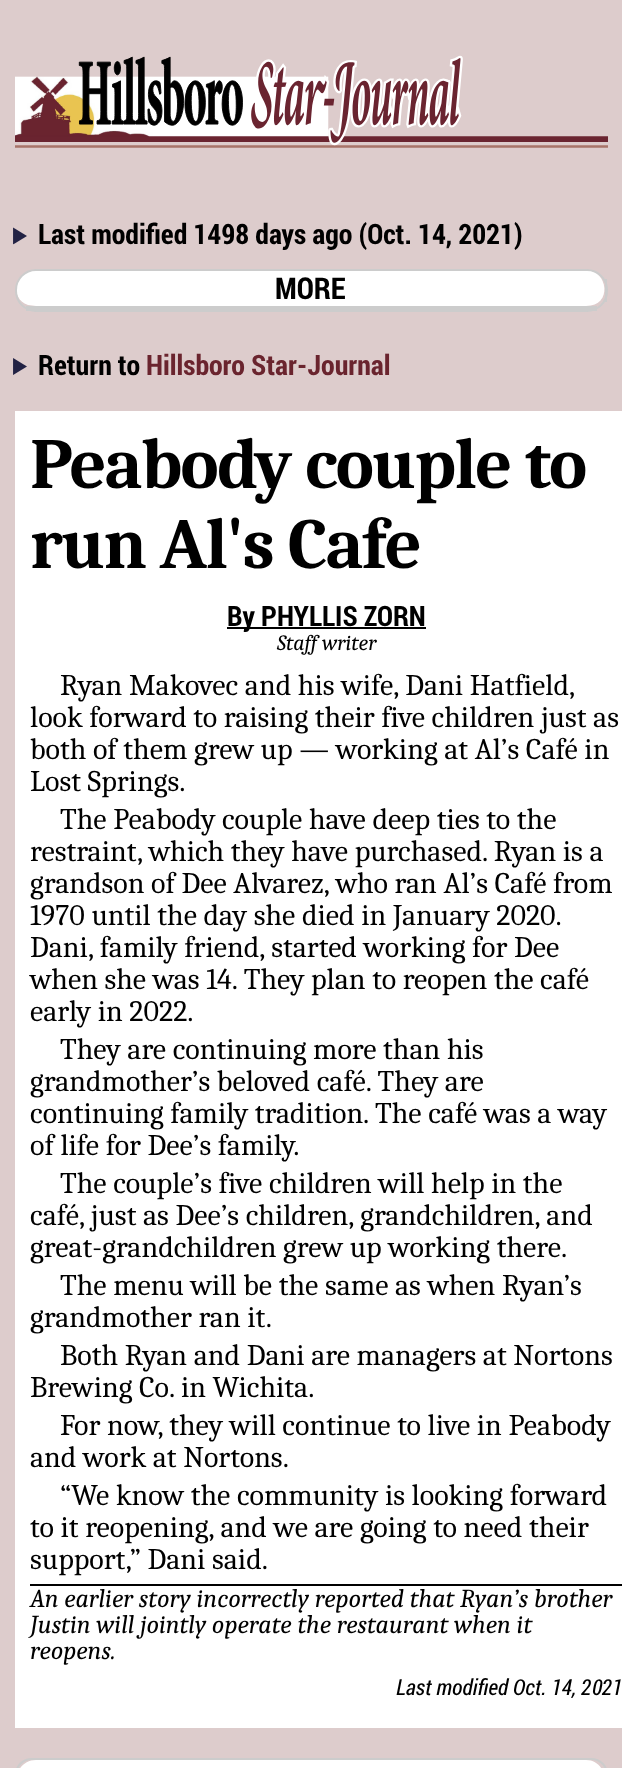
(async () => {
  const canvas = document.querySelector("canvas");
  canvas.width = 622;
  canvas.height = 1768;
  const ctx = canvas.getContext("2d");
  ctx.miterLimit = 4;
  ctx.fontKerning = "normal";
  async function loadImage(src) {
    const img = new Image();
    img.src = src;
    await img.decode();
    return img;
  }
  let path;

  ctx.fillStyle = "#ddcccc";
  ctx.fillRect(0, 0, 622, 1768);
  ctx.drawImage(await loadImage("img/1.png"), 15, 55, 593, 93);
  ctx.drawImage(await loadImage("img/2.png"), 13, 227, 14, 18);
  ctx.fillStyle = "#ffffff";
  path = new Path2D("M36 270H586C608 270 613 306 586 306H36L28 305C8 298 16 270 36 270Z");
  ctx.fill(path);
  ctx.beginPath();
  ctx.roundRect(16, 270, 591, 41, 20);
  ctx.strokeStyle = "#cccccc";
  ctx.lineWidth = 2;
  ctx.stroke();
  ctx.fillStyle = "#cccccc";
  ctx.fillRect(605, 279, 2, 23);
  ctx.fillRect(26, 306, 571, 5);
  ctx.drawImage(await loadImage("img/3.png"), 13, 358, 14, 17);
  for (const [x, y, w, h, color] of [
    [15, 411, 607, 1317, "#ffffff"],
    [227, 627, 199, 2, "#000000"],
    [30, 1584, 592, 2, "#000000"],
  ]) {
    ctx.fillStyle = color;
    ctx.fillRect(x, y, w, h);
  }
  ctx.fillStyle = "#ffffff";
  path = new Path2D("M36 1760H586C608 1760 613 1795 586 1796H36L28 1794C8 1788 16 1760 36 1760Z");
  ctx.fill(path);
  ctx.beginPath();
  ctx.roundRect(16, 1759, 591, 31, 20);
  ctx.stroke();
  ctx.font = "bold 28px Roboto Condensed";
  ctx.fillStyle = "#000000";
  ctx.fillText("Last modified 1498 days ago (Oct. 14, 2021)", 38, 244);
  ctx.font = "bold 30px Roboto Condensed";
  ctx.fillText("MORE", 275, 299);
  ctx.font = "bold 28px Roboto Condensed";
  ctx.fillText("Return to", 38, 375);
  ctx.fillStyle = "#6a242e";
  ctx.fillText("Hillsboro Star-Journal", 146, 375);
  ctx.letterSpacing = "-1.5px";
  ctx.font = "bold 72px Caladea";
  ctx.fillStyle = "#000000";
  ctx.fillText("Peabody couple to", 30, 488);
  ctx.fillText("run Al's Cafe", 30, 568);
  ctx.letterSpacing = "0px";
  ctx.font = "bold 28px Roboto Condensed";
  ctx.fillText("By PHYLLIS ZORN", 227, 626);
  ctx.font = "italic 22px Caladea";
  ctx.fillText("Staff writer", 277, 650);
  ctx.font = "30px Caladea";
  for (const [text, x, y] of [
    ["Ryan Makovec and his wife, Dani Hatfield,", 60, 695],
    ["look forward to raising their five children just as", 30, 727],
    ["both of them grew up — working at Al’s Café in", 30, 759],
    ["Lost Springs.", 30, 791],
    ["The Peabody couple have deep ties to the", 60, 829],
    ["restraint, which they have purchased. Ryan is a", 30, 861],
    ["grandson of Dee Alvarez, who ran Al’s Café from", 30, 893],
    ["1970 until the day she died in January 2020.", 30, 925],
    ["Dani, family friend, started working for Dee", 30, 957],
    ["when she was 14. They plan to reopen the café", 30, 989],
    ["early in 2022.", 30, 1021],
    ["They are continuing more than his", 60, 1059],
    ["grandmother’s beloved café. They are", 30, 1091],
    ["continuing family tradition. The café was a way", 30, 1123],
    ["of life for Dee’s family.", 30, 1155],
    ["The couple’s five children will help in the", 60, 1193],
    ["café, just as Dee’s children, grandchildren, and", 30, 1225],
    ["great-grandchildren grew up working there.", 30, 1257],
    ["The menu will be the same as when Ryan’s", 60, 1295],
    ["grandmother ran it.", 30, 1327],
    ["Both Ryan and Dani are managers at Nortons", 60, 1365],
    ["Brewing Co. in Wichita.", 30, 1397],
    ["For now, they will continue to live in Peabody", 60, 1435],
    ["and work at Nortons.", 30, 1467],
    ["“We know the community is looking forward", 60, 1505],
    ["to it reopening, and we are going to need their", 30, 1537],
    ["support,” Dani said.", 30, 1569],
  ]) {
    ctx.fillText(text, x, y);
  }
  ctx.font = "italic 26px Caladea";
  for (const [text, x, y] of [
    ["An earlier story incorrectly reported that Ryan’s brother", 30, 1607],
    ["Justin will jointly operate the restaurant when it", 30, 1633],
    ["reopens.", 30, 1659],
  ]) {
    ctx.fillText(text, x, y);
  }
  ctx.font = "italic 22px Roboto Condensed";
  ctx.fillText("Last modified Oct. 14, 2021", 396, 1695);
})();
